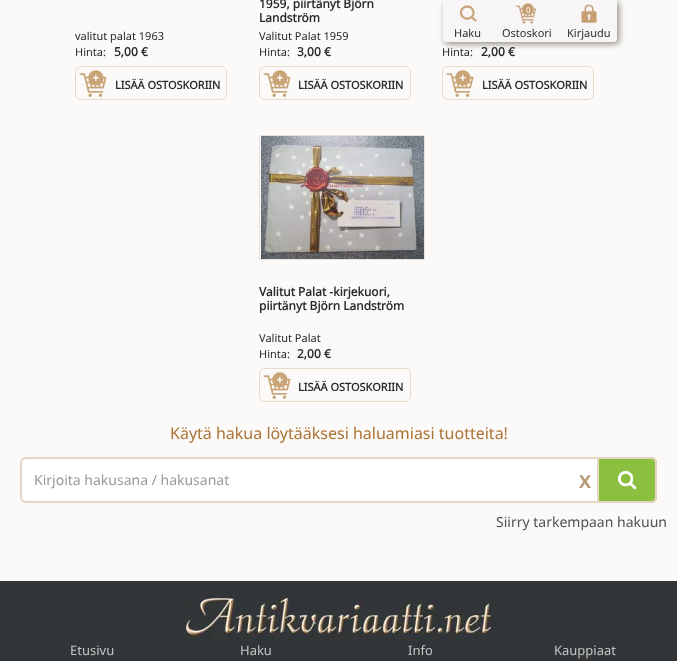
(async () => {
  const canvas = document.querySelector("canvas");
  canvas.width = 677;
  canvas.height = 661;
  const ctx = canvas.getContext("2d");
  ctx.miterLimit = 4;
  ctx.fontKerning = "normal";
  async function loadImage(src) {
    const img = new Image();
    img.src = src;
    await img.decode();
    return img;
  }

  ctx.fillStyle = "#fbfaf9";
  ctx.fillRect(0, 0, 677, 661);
  ctx.beginPath();
  ctx.roundRect(75.5, 66.5, 151, 33, 5.5);
  ctx.strokeStyle = "#e8dacb";
  ctx.stroke();
  ctx.drawImage(await loadImage("img/1.png"), 79, 70, 28, 27);
  ctx.beginPath();
  ctx.roundRect(259.5, 66.5, 151, 33, 5.5);
  ctx.stroke();
  ctx.drawImage(await loadImage("img/1.png"), 263, 70, 28, 27);
  ctx.beginPath();
  ctx.roundRect(442.5, 66.5, 151, 33, 5.5);
  ctx.stroke();
  ctx.drawImage(await loadImage("img/1.png"), 446, 70, 28, 27);
  ctx.strokeStyle = "#e7e2dc";
  ctx.strokeRect(259.5, 135.5, 165, 124);
  ctx.drawImage(await loadImage("img/2.png"), 261, 136, 163, 123);
  ctx.beginPath();
  ctx.roundRect(259.5, 368.5, 151, 33, 5.5);
  ctx.strokeStyle = "#e8dacb";
  ctx.stroke();
  ctx.drawImage(await loadImage("img/1.png"), 263, 372, 28, 27);
  ctx.fillStyle = "#ffffff";
  ctx.beginPath();
  ctx.roundRect(21, 458, 635, 44, 5);
  ctx.fill();
  ctx.strokeStyle = "#e5d5c2";
  ctx.lineWidth = 2;
  ctx.stroke();
  ctx.fillStyle = "#8bbf40";
  ctx.beginPath();
  ctx.roundRect(597, 457, 60, 46, [0, 6, 6, 0]);
  ctx.fill();
  ctx.drawImage(await loadImage("img/3.png"), 617, 470, 20, 20);
  ctx.beginPath();
  ctx.roundRect(598, 458, 58, 44, [0, 5, 5, 0]);
  ctx.stroke();
  ctx.fillStyle = "rgba(56, 47, 33, 0.54)";
  ctx.filter = "blur(3px)";
  ctx.beginPath();
  ctx.roundRect(445, 2, 174, 42, 3);
  ctx.fill();
  ctx.filter = "none";
  ctx.fillStyle = "#f7f5f5";
  ctx.beginPath();
  ctx.roundRect(443, 0, 174, 42, [0, 0, 3, 3]);
  ctx.fill();
  ctx.drawImage(await loadImage("img/4.png"), 459, 5, 18, 17);
  ctx.drawImage(await loadImage("img/5.png"), 515, 3, 21, 21);
  ctx.drawImage(await loadImage("img/6.png"), 581, 4, 16, 19);
  ctx.fillStyle = "#313537";
  ctx.fillRect(0, 581, 677, 80);
  ctx.drawImage(await loadImage("img/7.png"), 183, 595, 308, 44);
  ctx.font = "11px Noto Sans";
  ctx.fillStyle = "#25292b";
  ctx.fillText("valitut palat 1963", 75, 40);
  ctx.fillText("Hinta:", 75, 56);
  ctx.font = "bold 12px Noto Sans";
  ctx.fillText("5,00 €", 114, 56);
  ctx.font = "bold 11px Noto Sans";
  ctx.fillText("LISÄÄ OSTOSKORIIN", 115, 89);
  ctx.font = "bold 12px Noto Sans";
  ctx.fillText("1959, piirtänyt Björn", 259, 8);
  ctx.fillText("Landström", 259, 22);
  ctx.font = "11px Noto Sans";
  ctx.fillText("Valitut Palat 1959", 259, 40);
  ctx.fillText("Hinta:", 259, 56);
  ctx.font = "bold 12px Noto Sans";
  ctx.fillText("3,00 €", 297, 56);
  ctx.font = "bold 11px Noto Sans";
  ctx.fillText("LISÄÄ OSTOSKORIIN", 298, 89);
  ctx.font = "11px Noto Sans";
  ctx.fillText("Hinta:", 442, 56);
  ctx.font = "bold 12px Noto Sans";
  ctx.fillText("2,00 €", 481, 56);
  ctx.font = "bold 11px Noto Sans";
  ctx.fillText("LISÄÄ OSTOSKORIIN", 482, 89);
  ctx.font = "bold 12px Noto Sans";
  ctx.fillText("Valitut Palat -kirjekuori,", 259, 296);
  ctx.fillText("piirtänyt Björn Landström", 259, 310);
  ctx.font = "11px Noto Sans";
  ctx.fillText("Valitut Palat", 259, 342);
  ctx.fillText("Hinta:", 259, 358);
  ctx.font = "bold 12px Noto Sans";
  ctx.fillText("2,00 €", 297, 358);
  ctx.font = "bold 11px Noto Sans";
  ctx.fillText("LISÄÄ OSTOSKORIIN", 298, 391);
  ctx.font = "16px Noto Sans";
  ctx.fillStyle = "#ab7334";
  ctx.fillText("Käytä hakua löytääksesi haluamiasi tuotteita!", 170, 439);
  ctx.font = "14px Noto Sans";
  ctx.fillStyle = "#999999";
  ctx.fillText("Kirjoita hakusana / hakusanat", 34, 485);
  ctx.font = "bold 18px 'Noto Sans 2'";
  ctx.fillStyle = "#b89975";
  ctx.fillText("X", 579, 488);
  ctx.font = "14px Noto Sans";
  ctx.fillStyle = "#4b5357";
  ctx.fillText("Siirry tarkempaan hakuun", 496, 527);
  ctx.font = "11px Noto Sans";
  ctx.fillStyle = "#303030";
  ctx.fillText("Haku", 454, 37);
  ctx.font = "8px Noto Sans";
  ctx.fillStyle = "#ffffff";
  ctx.fillText("0", 526, 13);
  ctx.font = "11px Noto Sans";
  ctx.fillStyle = "#303030";
  ctx.fillText("Ostoskori", 502, 37);
  ctx.fillText("Kirjaudu", 567, 37);
  ctx.font = "13px Noto Sans";
  ctx.fillStyle = "#c5c5c5";
  for (const [text, x, y] of [
    ["Etusivu", 70, 655],
    ["Haku", 240, 655],
    ["Info", 408, 655],
    ["Kauppiaat", 554, 655],
  ]) {
    ctx.fillText(text, x, y);
  }
})();
